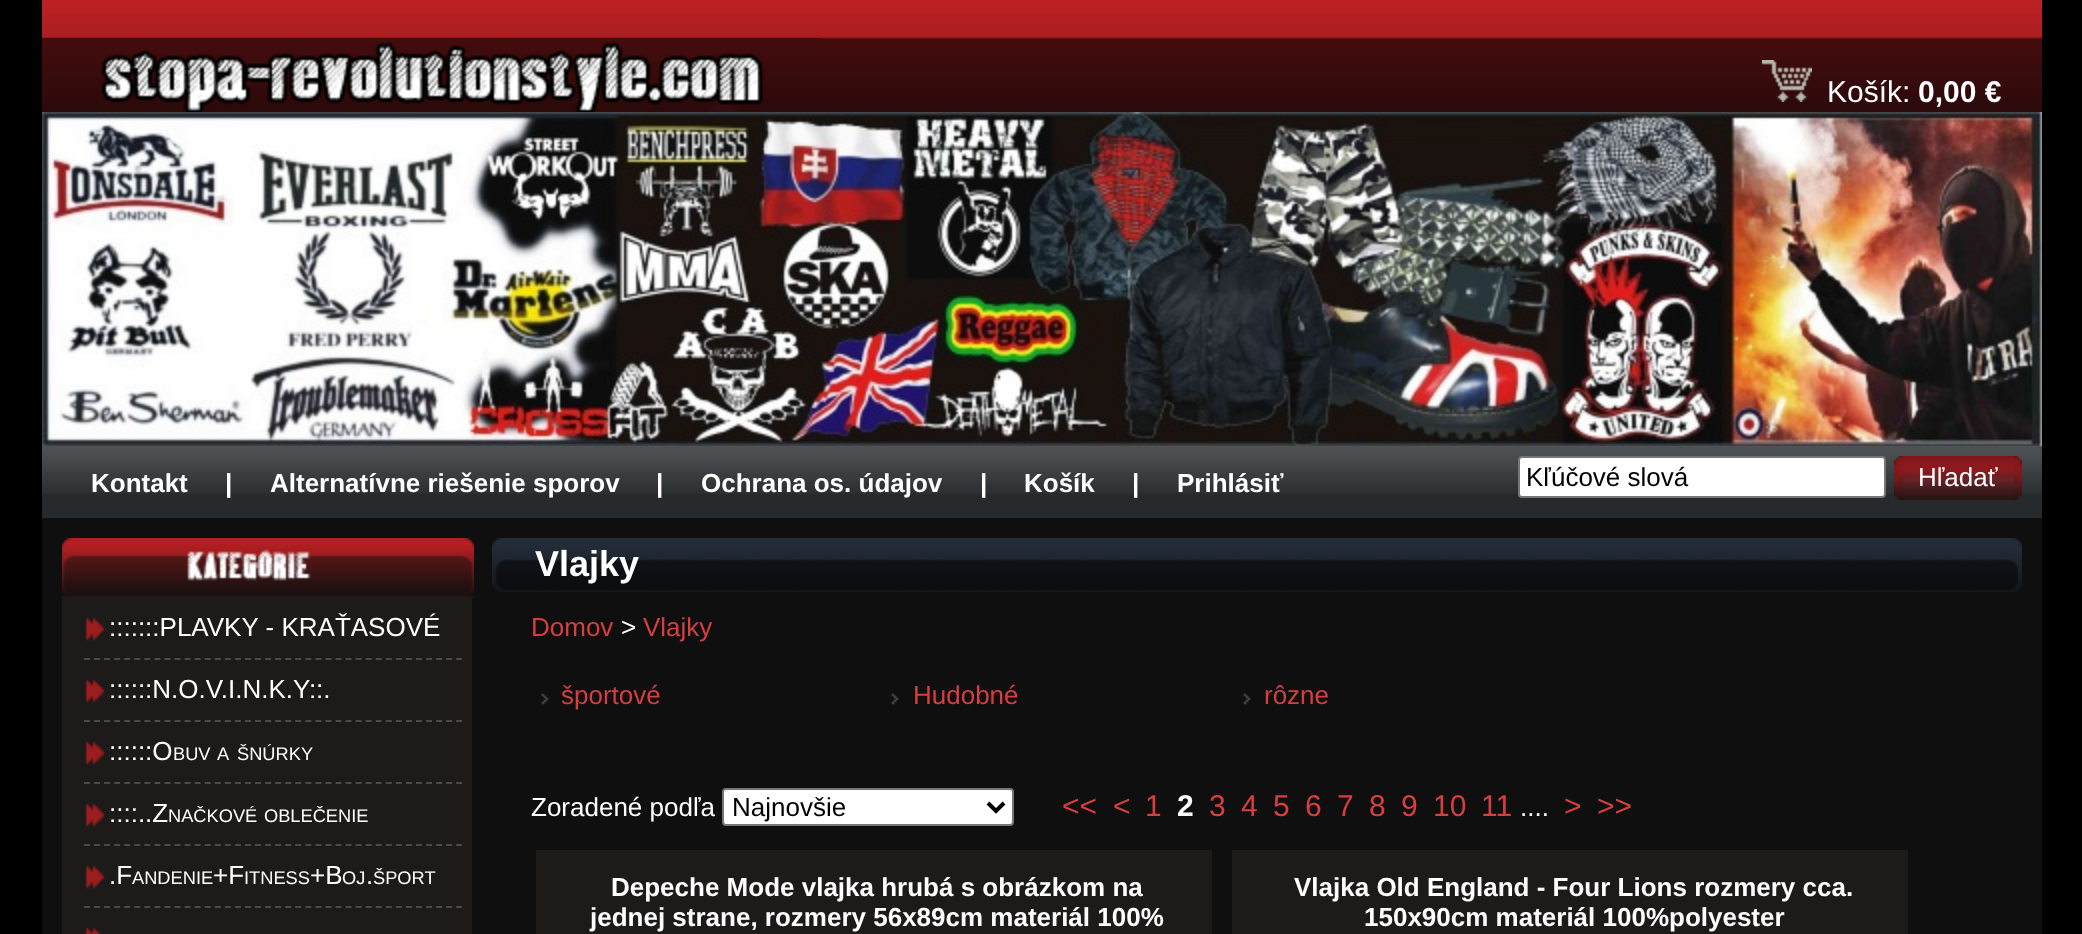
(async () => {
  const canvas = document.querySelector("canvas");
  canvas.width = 2082;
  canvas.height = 934;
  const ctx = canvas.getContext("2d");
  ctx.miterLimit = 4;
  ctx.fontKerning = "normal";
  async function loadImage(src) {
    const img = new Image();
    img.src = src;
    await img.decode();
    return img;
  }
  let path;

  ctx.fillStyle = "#000000";
  ctx.fillRect(0, 0, 2082, 934);
  ctx.drawImage(await loadImage("img/1.png"), 42, 0, 2000, 112);
  ctx.drawImage(await loadImage("img/2.png"), 42, 38, 778, 74);
  ctx.drawImage(await loadImage("img/3.png"), 1762, 60, 50, 42);
  ctx.drawImage(await loadImage("img/4.png"), 42, 112, 2000, 334);
  ctx.drawImage(await loadImage("img/5.png"), 42, 446, 2000, 72);
  ctx.fillStyle = "#ffffff";
  ctx.beginPath();
  ctx.roundRect(1519, 457, 366, 40, 3);
  ctx.fill();
  ctx.strokeStyle = "#767676";
  ctx.lineWidth = 2;
  ctx.stroke();
  ctx.drawImage(await loadImage("img/6.png"), 2014, 456, 8, 44);
  ctx.drawImage(await loadImage("img/7.png"), 1894, 456, 120, 44);
  ctx.fillStyle = "#0f0f0f";
  ctx.fillRect(42, 518, 2000, 416);
  ctx.fillStyle = "#1d1a1a";
  ctx.fillRect(62, 598, 410, 336);
  ctx.drawImage(await loadImage("img/8.png"), 62, 538, 412, 60);
  ctx.drawImage(await loadImage("img/9.png"), 85, 617, 20, 24);
  path = new Path2D("M84 659H462");
  ctx.strokeStyle = "#4a4a4a";
  ctx.setLineDash([6, 4.06]);
  ctx.stroke(path);
  ctx.drawImage(await loadImage("img/9.png"), 85, 679, 20, 24);
  path = new Path2D("M84 721H462");
  ctx.stroke(path);
  ctx.drawImage(await loadImage("img/9.png"), 85, 741, 20, 24);
  path = new Path2D("M84 783H462");
  ctx.stroke(path);
  ctx.drawImage(await loadImage("img/9.png"), 85, 803, 20, 24);
  path = new Path2D("M84 845H462");
  ctx.stroke(path);
  ctx.drawImage(await loadImage("img/9.png"), 85, 865, 20, 24);
  path = new Path2D("M84 907H462");
  ctx.stroke(path);
  ctx.drawImage(await loadImage("img/10.png"), 85, 927, 17, 7);
  ctx.drawImage(await loadImage("img/11.png"), 492, 538, 1530, 54);
  ctx.drawImage(await loadImage("img/12.png"), 541, 693, 8, 12);
  ctx.drawImage(await loadImage("img/12.png"), 891, 693, 8, 12);
  ctx.drawImage(await loadImage("img/12.png"), 1243, 693, 8, 12);
  ctx.fillStyle = "#ffffff";
  ctx.beginPath();
  ctx.roundRect(723, 789, 290, 36, 3);
  ctx.fill();
  ctx.strokeStyle = "#767676";
  ctx.setLineDash([]);
  ctx.stroke();
  path = new Path2D("M988 803L996 811L1004 803");
  ctx.strokeStyle = "#000000";
  ctx.lineWidth = 4;
  ctx.stroke(path);
  ctx.fillStyle = "#1d1a1a";
  ctx.fillRect(536, 850, 676, 84);
  ctx.fillRect(1232, 850, 676, 84);
  ctx.font = "30px Liberation Sans";
  ctx.fillStyle = "#ffffff";
  ctx.fillText("Košík:", 1827, 102);
  ctx.font = "bold 30px Liberation Sans";
  ctx.fillText("0,00 €", 1918, 102);
  ctx.font = "bold 26px Liberation Sans";
  for (const [text, x, y] of [
    ["Kontakt", 91, 492],
    ["|", 225, 492],
    ["Alternatívne riešenie sporov", 270, 492],
    ["|", 656, 492],
    ["Ochrana os. údajov", 701, 492],
    ["|", 980, 492],
    ["Košík", 1024, 492],
    ["|", 1132, 492],
    ["Prihlásiť", 1177, 492],
  ]) {
    ctx.fillText(text, x, y);
  }
  ctx.font = "26px Liberation Sans";
  ctx.fillStyle = "#000000";
  ctx.fillText("Kľúčové slová", 1526, 486);
  ctx.fillStyle = "#ffffff";
  for (const [text, x, y] of [
    ["Hľadať", 1918, 486],
    [":::::::PLAVKY - KRAŤASOVÉ", 109, 636],
    ["::::::N.O.V.I.N.K.Y::.", 109, 698],
    ["::::::O", 109, 760],
  ]) {
    ctx.fillText(text, x, y);
  }
  ctx.font = "18.25px Liberation Sans";
  for (const [text, x, y] of [
    ["BUV", 173, 760],
    ["A", 217, 760],
    ["ŠNÚRKY", 237, 760],
  ]) {
    ctx.fillText(text, x, y);
  }
  ctx.font = "26px Liberation Sans";
  ctx.fillText("::::..Z", 109, 822);
  ctx.font = "18.25px Liberation Sans";
  ctx.fillText("NAČKOVÉ", 168, 822);
  ctx.fillText("OBLEČENIE", 264, 822);
  ctx.font = "26px Liberation Sans";
  ctx.fillText(".F", 109, 884);
  ctx.font = "18.25px Liberation Sans";
  ctx.fillText("ANDENIE", 132, 884);
  ctx.font = "26px Liberation Sans";
  ctx.fillText("+F", 213, 884);
  ctx.font = "18.25px Liberation Sans";
  ctx.fillText("ITNESS", 244, 884);
  ctx.font = "26px Liberation Sans";
  ctx.fillText("+B", 310, 884);
  ctx.font = "18.25px Liberation Sans";
  ctx.fillText("OJ", 342, 884);
  ctx.font = "26px Liberation Sans";
  ctx.fillText(".", 366, 884);
  ctx.font = "18.25px Liberation Sans";
  ctx.fillText("ŠPORT", 373, 884);
  ctx.font = "bold 36px Liberation Sans";
  ctx.fillText("Vlajky", 535, 576);
  ctx.font = "26px Liberation Sans";
  ctx.fillStyle = "#d63e40";
  ctx.fillText("Domov", 531, 636);
  ctx.fillStyle = "#ffffff";
  ctx.fillText(">", 621, 636);
  ctx.fillStyle = "#d63e40";
  for (const [text, x, y] of [
    ["Vlajky", 643, 636],
    ["športové", 561, 704],
    ["Hudobné", 913, 704],
    ["rôzne", 1264, 704],
  ]) {
    ctx.fillText(text, x, y);
  }
  ctx.fillStyle = "#ffffff";
  ctx.fillText("Zoradené podľa", 531, 816);
  ctx.fillStyle = "#000000";
  ctx.fillText("Najnovšie", 732, 816);
  ctx.font = "30px Liberation Sans";
  ctx.fillStyle = "#d63e40";
  for (const [text, x, y] of [
    ["<<", 1062, 816],
    ["<", 1113, 816],
    ["1", 1145, 816],
  ]) {
    ctx.fillText(text, x, y);
  }
  ctx.font = "bold 30px Liberation Sans";
  ctx.fillStyle = "#ffffff";
  ctx.fillText("2", 1177, 816);
  ctx.font = "30px Liberation Sans";
  ctx.fillStyle = "#d63e40";
  for (const [text, x, y] of [
    ["3", 1209, 816],
    ["4", 1241, 816],
    ["5", 1273, 816],
    ["6", 1305, 816],
    ["7", 1337, 816],
    ["8", 1369, 816],
    ["9", 1401, 816],
    ["10", 1433, 816],
    ["11", 1481, 816],
    [">", 1564, 816],
    [">>", 1597, 816],
  ]) {
    ctx.fillText(text, x, y);
  }
  ctx.font = "26px Liberation Sans";
  ctx.fillStyle = "#ffffff";
  ctx.fillText("....", 1520, 816);
  ctx.font = "bold 26px Liberation Sans";
  for (const [text, x, y] of [
    ["Depeche Mode vlajka hrubá s obrázkom na", 611, 896],
    ["jednej strane, rozmery 56x89cm materiál 100%", 590, 926],
    ["Vlajka Old England - Four Lions rozmery cca.", 1294, 896],
    ["150x90cm materiál 100%polyester", 1364, 926],
  ]) {
    ctx.fillText(text, x, y);
  }
})();
